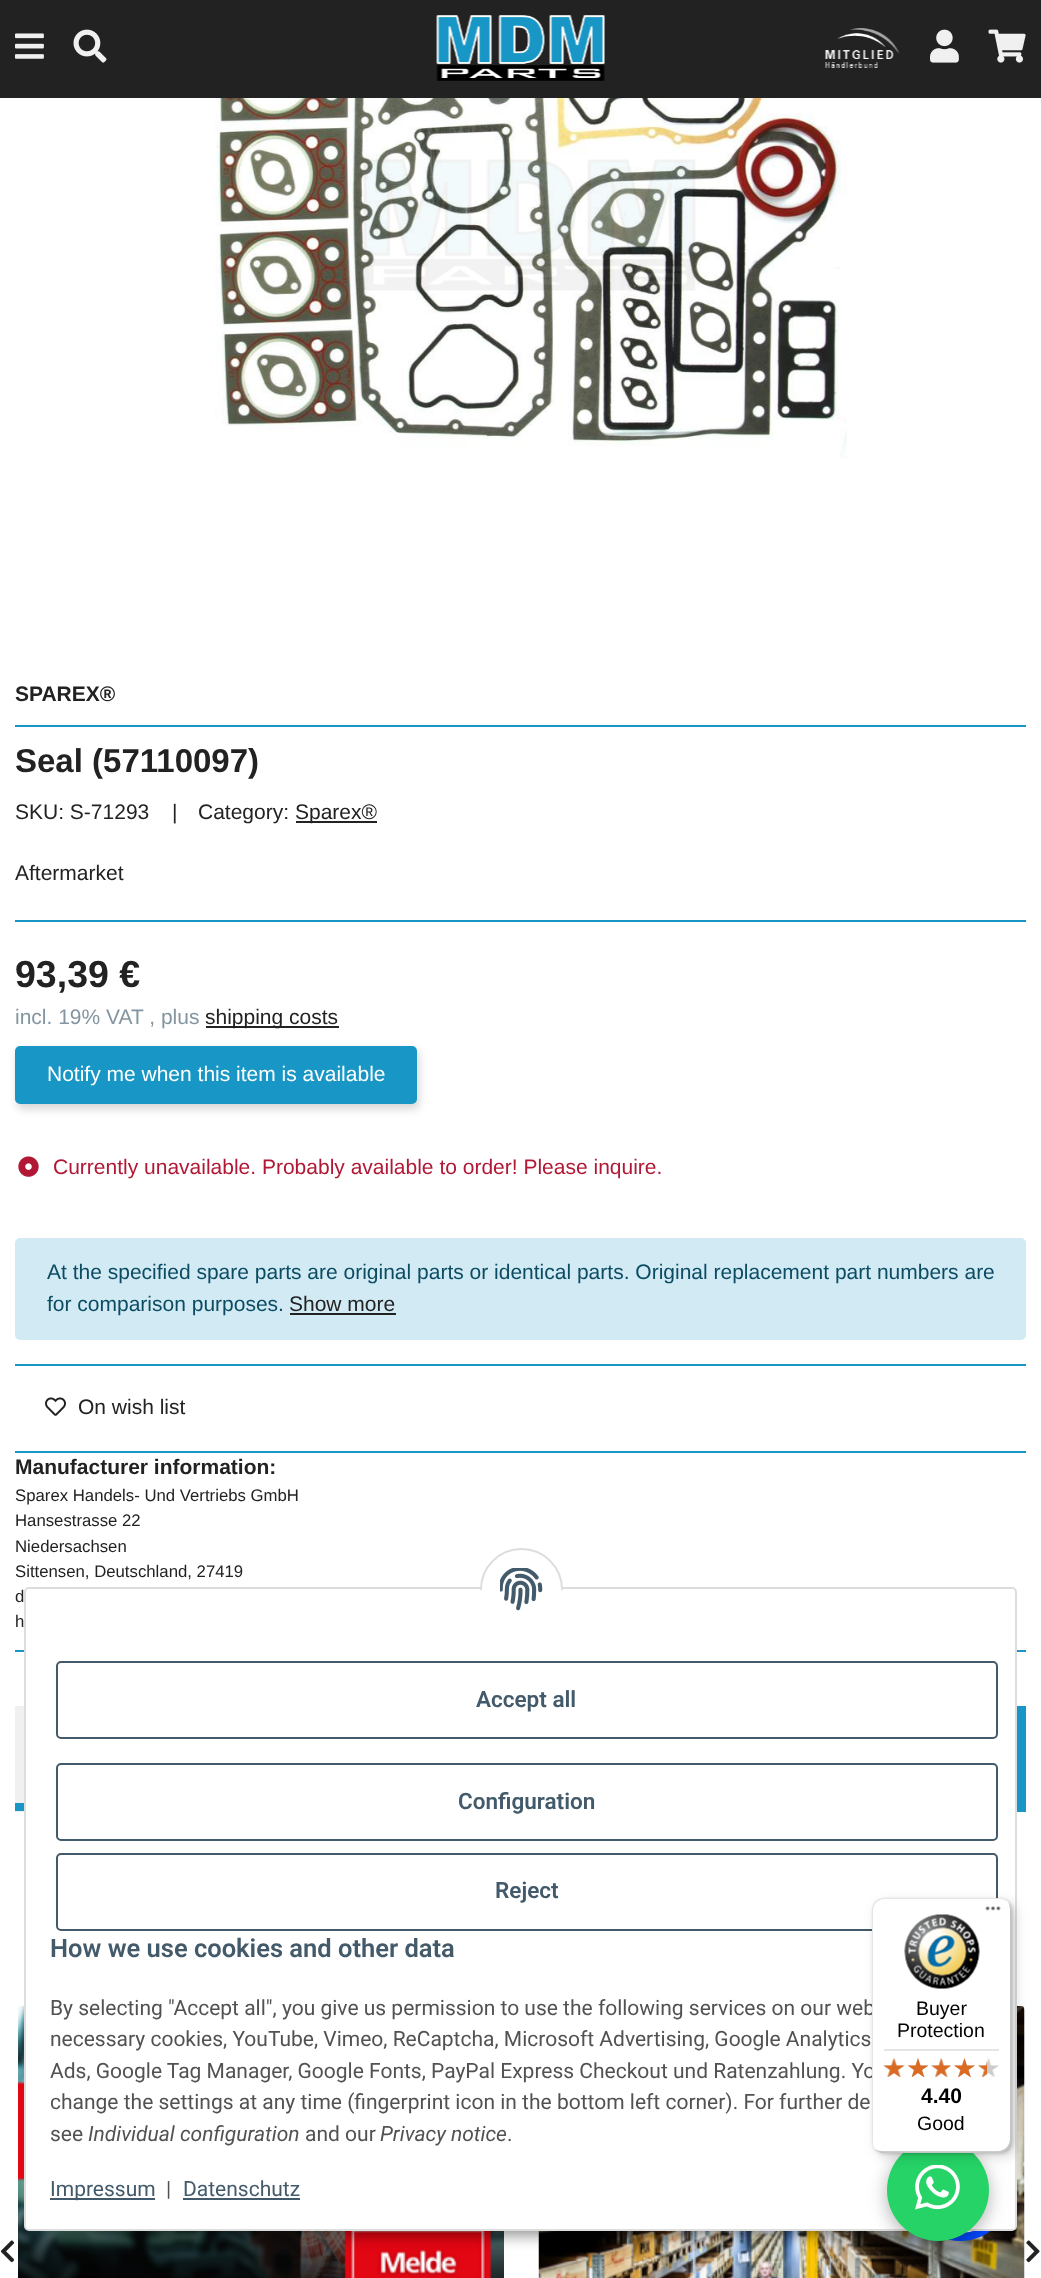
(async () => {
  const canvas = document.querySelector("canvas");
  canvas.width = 1041;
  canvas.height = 2278;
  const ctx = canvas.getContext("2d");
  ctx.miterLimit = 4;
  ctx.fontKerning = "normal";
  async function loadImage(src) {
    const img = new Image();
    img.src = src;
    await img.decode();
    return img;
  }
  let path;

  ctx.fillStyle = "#ffffff";
  ctx.fillRect(0, 0, 1041, 2278);
  ctx.fillStyle = "#222222";
  ctx.fillRect(0, 0, 1041, 98);
  ctx.drawImage(await loadImage("img/1.png"), 15, 33, 29, 26);
  ctx.drawImage(await loadImage("img/2.png"), 73, 29, 34, 34);
  ctx.drawImage(await loadImage("img/3.png"), 436, 15, 169, 66);
  ctx.drawImage(await loadImage("img/4.png"), 825, 28, 75, 40);
  ctx.drawImage(await loadImage("img/5.png"), 930, 29, 29, 34);
  ctx.drawImage(await loadImage("img/6.png"), 988, 29, 38, 34);
  ctx.drawImage(await loadImage("img/7.png"), 215, 98, 632, 361);
  for (const [x, y, w, h, color] of [
    [15, 725, 1011, 2, "#1897c6"],
    [296, 821, 81, 2, "#222222"],
    [15, 920, 1011, 2, "#1897c6"],
    [206, 1026, 133, 2, "#222222"],
  ]) {
    ctx.fillStyle = color;
    ctx.fillRect(x, y, w, h);
  }
  ctx.fillStyle = "rgba(0, 0, 0, 0.16)";
  ctx.filter = "blur(4.5px)";
  ctx.beginPath();
  ctx.roundRect(17, 1050, 402, 59, 5);
  ctx.fill();
  ctx.filter = "none";
  ctx.fillStyle = "#1897c6";
  ctx.beginPath();
  ctx.roundRect(16, 1047, 400, 56, 4);
  ctx.fill();
  ctx.strokeStyle = "#1897c6";
  ctx.lineWidth = 2;
  ctx.stroke();
  ctx.drawImage(await loadImage("img/8.png"), 18, 1156, 21, 21);
  ctx.fillStyle = "#d1eaf4";
  ctx.beginPath();
  ctx.roundRect(16, 1239, 1009, 100, 4);
  ctx.fill();
  ctx.strokeStyle = "#d1eaf4";
  ctx.stroke();
  for (const [x, y, w, h, color] of [
    [290, 1313, 106, 2, "#222222"],
    [15, 1364, 1011, 2, "#1897c6"],
    [15, 1451, 1011, 2, "#1897c6"],
  ]) {
    ctx.fillStyle = color;
    ctx.fillRect(x, y, w, h);
  }
  ctx.drawImage(await loadImage("img/9.png"), 45, 1397, 21, 19);
  for (const [x, y, w, h, color] of [
    [15, 1650, 1011, 2, "#1897c6"],
    [15, 1811, 9, 1, "#f0f0f0"],
    [15, 1706, 9, 97, "#f0f0f0"],
    [15, 1803, 9, 8, "#1897c6"],
    [1017, 1706, 9, 106, "#1897c6"],
  ]) {
    ctx.fillStyle = color;
    ctx.fillRect(x, y, w, h);
  }
  ctx.drawImage(await loadImage("img/10.png"), 18, 2006, 486, 272);
  ctx.drawImage(await loadImage("img/11.png"), 538, 2006, 487, 272);
  ctx.drawImage(await loadImage("img/12.png"), 0, 2240, 15, 23);
  ctx.drawImage(await loadImage("img/13.png"), 1026, 2240, 14, 23);
  ctx.fillStyle = "rgba(93, 100, 148, 0.2)";
  ctx.filter = "blur(3px)";
  ctx.beginPath();
  ctx.roundRect(917, 2150, 87, 87, 43.5);
  ctx.fill();
  ctx.filter = "none";
  ctx.fillStyle = "rgba(37, 44, 97, 0.15)";
  ctx.filter = "blur(11px)";
  ctx.beginPath();
  ctx.roundRect(917, 2154, 87, 87, 43.5);
  ctx.fill();
  ctx.filter = "none";
  ctx.beginPath();
  ctx.arc(960.5, 2190.5, 41, 0, Math.PI * 2);
  ctx.strokeStyle = "#ffffff";
  ctx.lineWidth = 5;
  ctx.stroke();
  ctx.beginPath();
  ctx.arc(960, 2190, 47, 0, Math.PI * 2);
  ctx.strokeStyle = "#0048ff";
  ctx.lineWidth = 8;
  ctx.stroke();
  ctx.fillStyle = "rgba(0, 0, 0, 0.45)";
  ctx.filter = "blur(7.5px)";
  ctx.beginPath();
  ctx.roundRect(75, 2187, 891, 48, 24);
  ctx.fill();
  ctx.filter = "none";
  ctx.fillStyle = "#ffffff";
  ctx.beginPath();
  ctx.roundRect(25, 1588, 991, 642, 4);
  ctx.fill();
  ctx.strokeStyle = "#dddddd";
  ctx.lineWidth = 2;
  ctx.stroke();
  ctx.beginPath();
  ctx.arc(521.5, 1589.5, 40.5, 0, Math.PI * 2);
  ctx.fill();
  ctx.stroke();
  ctx.fillRect(480, 1590, 83, 41);
  ctx.drawImage(await loadImage("img/14.png"), 500, 1568, 43, 43);
  ctx.beginPath();
  ctx.roundRect(57, 1662, 940, 76, 4);
  ctx.strokeStyle = "#435a6b";
  ctx.stroke();
  ctx.beginPath();
  ctx.roundRect(57, 1764, 940, 76, 4);
  ctx.stroke();
  ctx.beginPath();
  ctx.roundRect(57, 1854, 940, 76, 4);
  ctx.stroke();
  ctx.fillStyle = "#435a6b";
  ctx.fillRect(50, 2198, 105, 2);
  ctx.fillRect(183, 2198, 117, 2);
  ctx.fillStyle = "rgba(0, 0, 0, 0.3)";
  ctx.filter = "blur(9px)";
  ctx.beginPath();
  ctx.roundRect(887, 2144, 102, 102, 51);
  ctx.fill();
  ctx.filter = "none";
  ctx.fillStyle = "#25d366";
  ctx.beginPath();
  ctx.arc(938, 2190, 51, 0, Math.PI * 2);
  ctx.fill();
  ctx.drawImage(await loadImage("img/27.png"), 915, 2165, 45, 45);
  ctx.fillStyle = "rgba(0, 0, 0, 0.15)";
  ctx.filter = "blur(6px)";
  ctx.beginPath();
  ctx.roundRect(876, 1902, 140, 255, 12);
  ctx.fill();
  ctx.filter = "none";
  ctx.filter = "blur(1.5px)";
  ctx.beginPath();
  ctx.roundRect(873, 1899, 140, 255, 12);
  ctx.fill();
  ctx.filter = "none";
  ctx.font = "bold 21px Liberation Sans";
  ctx.fillStyle = "#222222";
  ctx.fillText("SPAREX®", 15, 701);
  ctx.font = "bold 33px Liberation Sans";
  ctx.fillText("Seal (57110097)", 15, 772);
  ctx.font = "21px Liberation Sans";
  for (const [text, x, y] of [
    ["SKU: S-71293", 15, 819],
    ["|", 172, 819],
    ["Category:", 198, 819],
    ["Sparex®", 295, 819],
    ["Aftermarket", 15, 880],
  ]) {
    ctx.fillText(text, x, y);
  }
  ctx.font = "bold 37.5px Liberation Sans";
  ctx.fillText("93,39 €", 15, 987);
  ctx.font = "21px Liberation Sans";
  ctx.fillStyle = "#8395a0";
  ctx.fillText("incl. 19% VAT , plus", 15, 1024);
  ctx.fillStyle = "#222222";
  ctx.fillText("shipping costs", 205, 1024);
  ctx.fillStyle = "#ffffff";
  ctx.fillText("Notify me when this item is available", 47, 1081);
  ctx.fillStyle = "#b11835";
  ctx.fillText("Currently unavailable. Probably available to order! Please inquire.", 53, 1174);
  ctx.fillStyle = "#0c4c63";
  ctx.fillText("At the specified spare parts are original parts or identical parts. Original replacement part numbers are", 47, 1279);
  ctx.fillText("for comparison purposes.", 47, 1311);
  ctx.fillStyle = "#222222";
  ctx.fillText("Show more", 289, 1311);
  ctx.fillText("On wish list", 78, 1414);
  ctx.font = "bold 21px Liberation Sans";
  ctx.fillText("Manufacturer information:", 15, 1474);
  ctx.font = "16.75px Liberation Sans";
  for (const [text, x, y] of [
    ["Sparex Handels- Und Vertriebs GmbH", 15, 1501],
    ["Hansestrasse 22", 15, 1526],
    ["Niedersachsen", 15, 1552],
    ["Sittensen, Deutschland, 27419", 15, 1577],
    ["d", 15, 1602],
    ["h", 15, 1627],
  ]) {
    ctx.fillText(text, x, y);
  }
  ctx.font = "600 22.5px Roboto";
  ctx.fillStyle = "#435a6b";
  for (const [text, x, y] of [
    ["Accept all", 476, 1707],
    ["Configuration", 458, 1809],
    ["Reject", 495, 1898],
  ]) {
    ctx.fillText(text, x, y);
  }
  ctx.font = "600 25.5px Roboto";
  ctx.fillText("How we use cookies and other data", 50, 1957);
  ctx.font = "21px Roboto";
  ctx.fillStyle = "#525252";
  for (const [text, x, y] of [
    ["By selecting \"Accept all\", you give us permission to use the following services on our web", 50, 2015],
    ["necessary cookies, YouTube, Vimeo, ReCaptcha, Microsoft Advertising, Google Analytics", 50, 2046],
    ["Ads, Google Tag Manager, Google Fonts, PayPal Express Checkout und Ratenzahlung. Yo", 50, 2078],
    ["change the settings at any time (fingerprint icon in the bottom left corner). For further de", 50, 2109],
    ["see", 50, 2141],
  ]) {
    ctx.fillText(text, x, y);
  }
  ctx.font = "italic 21px Roboto";
  ctx.fillText("Individual configuration", 88, 2141);
  ctx.font = "21px Roboto";
  ctx.fillText("and our", 305, 2141);
  ctx.font = "italic 21px Roboto";
  ctx.fillText("Privacy notice", 380, 2141);
  ctx.font = "21px Roboto";
  ctx.fillText(".", 507, 2141);
  ctx.fillStyle = "#435a6b";
  ctx.fillText("Impressum", 50, 2196);
  ctx.fillStyle = "#525252";
  ctx.fillText("|", 166, 2196);
  ctx.fillStyle = "#435a6b";
  ctx.fillText("Datenschutz", 183, 2196);
  ctx.fillStyle = "#ffffff";
  ctx.beginPath();
  ctx.roundRect(872, 1898, 139, 255, 12);
  ctx.fill();
  ctx.fillStyle = "#e5e5e5";
  path = new Path2D("M885 1899H1000C1003 1899 1005 1900 1007 1901C1005 1899 1002 1898 999 1898H884C877 1898 872 1903 872 1910V2141C872 2144 873 2147 875 2149C874 2147 873 2145 873 2142V1911C873 1904 878 1899 885 1899Z");
  ctx.fill(path);
  ctx.fillStyle = "rgba(0, 0, 0, 0.2)";
  path = new Path2D("M875 2149C877 2151 880 2153 884 2153H999C1006 2153 1011 2148 1011 2141V1910C1011 1908 1010 1905 1009 1904L1010 1908V2139C1010 2146 1004 2151 998 2151H882C879 2151 877 2150 875 2149Z");
  ctx.fill(path);
  ctx.fillStyle = "rgba(50, 50, 50, 0.2)";
  path = new Path2D("M875 2149C877 2151 880 2153 884 2153H999C1006 2153 1011 2148 1011 2141V1910C1011 1907 1010 1904 1008 1902C1009 1904 1010 1906 1010 1909V2140C1010 2146 1005 2152 998 2152H883C880 2152 877 2151 875 2149Z");
  ctx.fill(path);
  ctx.fillStyle = "rgba(255, 255, 255, 0.3)";
  path = new Path2D("M875 2149C877 2151 880 2153 884 2153H999C1006 2153 1011 2148 1011 2141V1910C1011 1907 1010 1904 1008 1902C1009 1904 1010 1906 1010 1909V2140C1010 2146 1005 2152 998 2152H883C880 2152 877 2151 875 2149Z");
  ctx.fill(path);
  ctx.drawImage(await loadImage("img/15.png"), 985, 1906, 16, 5);
  ctx.drawImage(await loadImage("img/16.png"), 904, 1914, 76, 75);
  ctx.font = "19.5px Liberation Sans";
  ctx.fillStyle = "#000000";
  ctx.fillText("Buyer", 916, 2015);
  ctx.fillText("Protection", 897, 2037);
  ctx.fillStyle = "#e5e5e5";
  ctx.fillRect(884, 2049, 115, 2);
  ctx.drawImage(await loadImage("img/17.png"), 883, 2058, 22, 19);
  ctx.drawImage(await loadImage("img/18.png"), 908, 2058, 20, 19);
  ctx.drawImage(await loadImage("img/19.png"), 931, 2058, 20, 19);
  ctx.drawImage(await loadImage("img/20.png"), 954, 2058, 21, 19);
  ctx.drawImage(await loadImage("img/21.png"), 978, 2058, 21, 19);
  ctx.drawImage(await loadImage("img/22.png"), 883, 2058, 22, 19);
  ctx.drawImage(await loadImage("img/23.png"), 908, 2058, 20, 20);
  ctx.drawImage(await loadImage("img/24.png"), 931, 2058, 20, 19);
  ctx.drawImage(await loadImage("img/25.png"), 954, 2058, 21, 20);
  ctx.drawImage(await loadImage("img/26.png"), 978, 2061, 9, 16);
  ctx.font = "bold 21px Liberation Sans";
  ctx.fillStyle = "#000000";
  ctx.fillText("4.40", 921, 2103);
  ctx.font = "19.5px Liberation Sans";
  ctx.fillText("Good", 917, 2130);
})();
